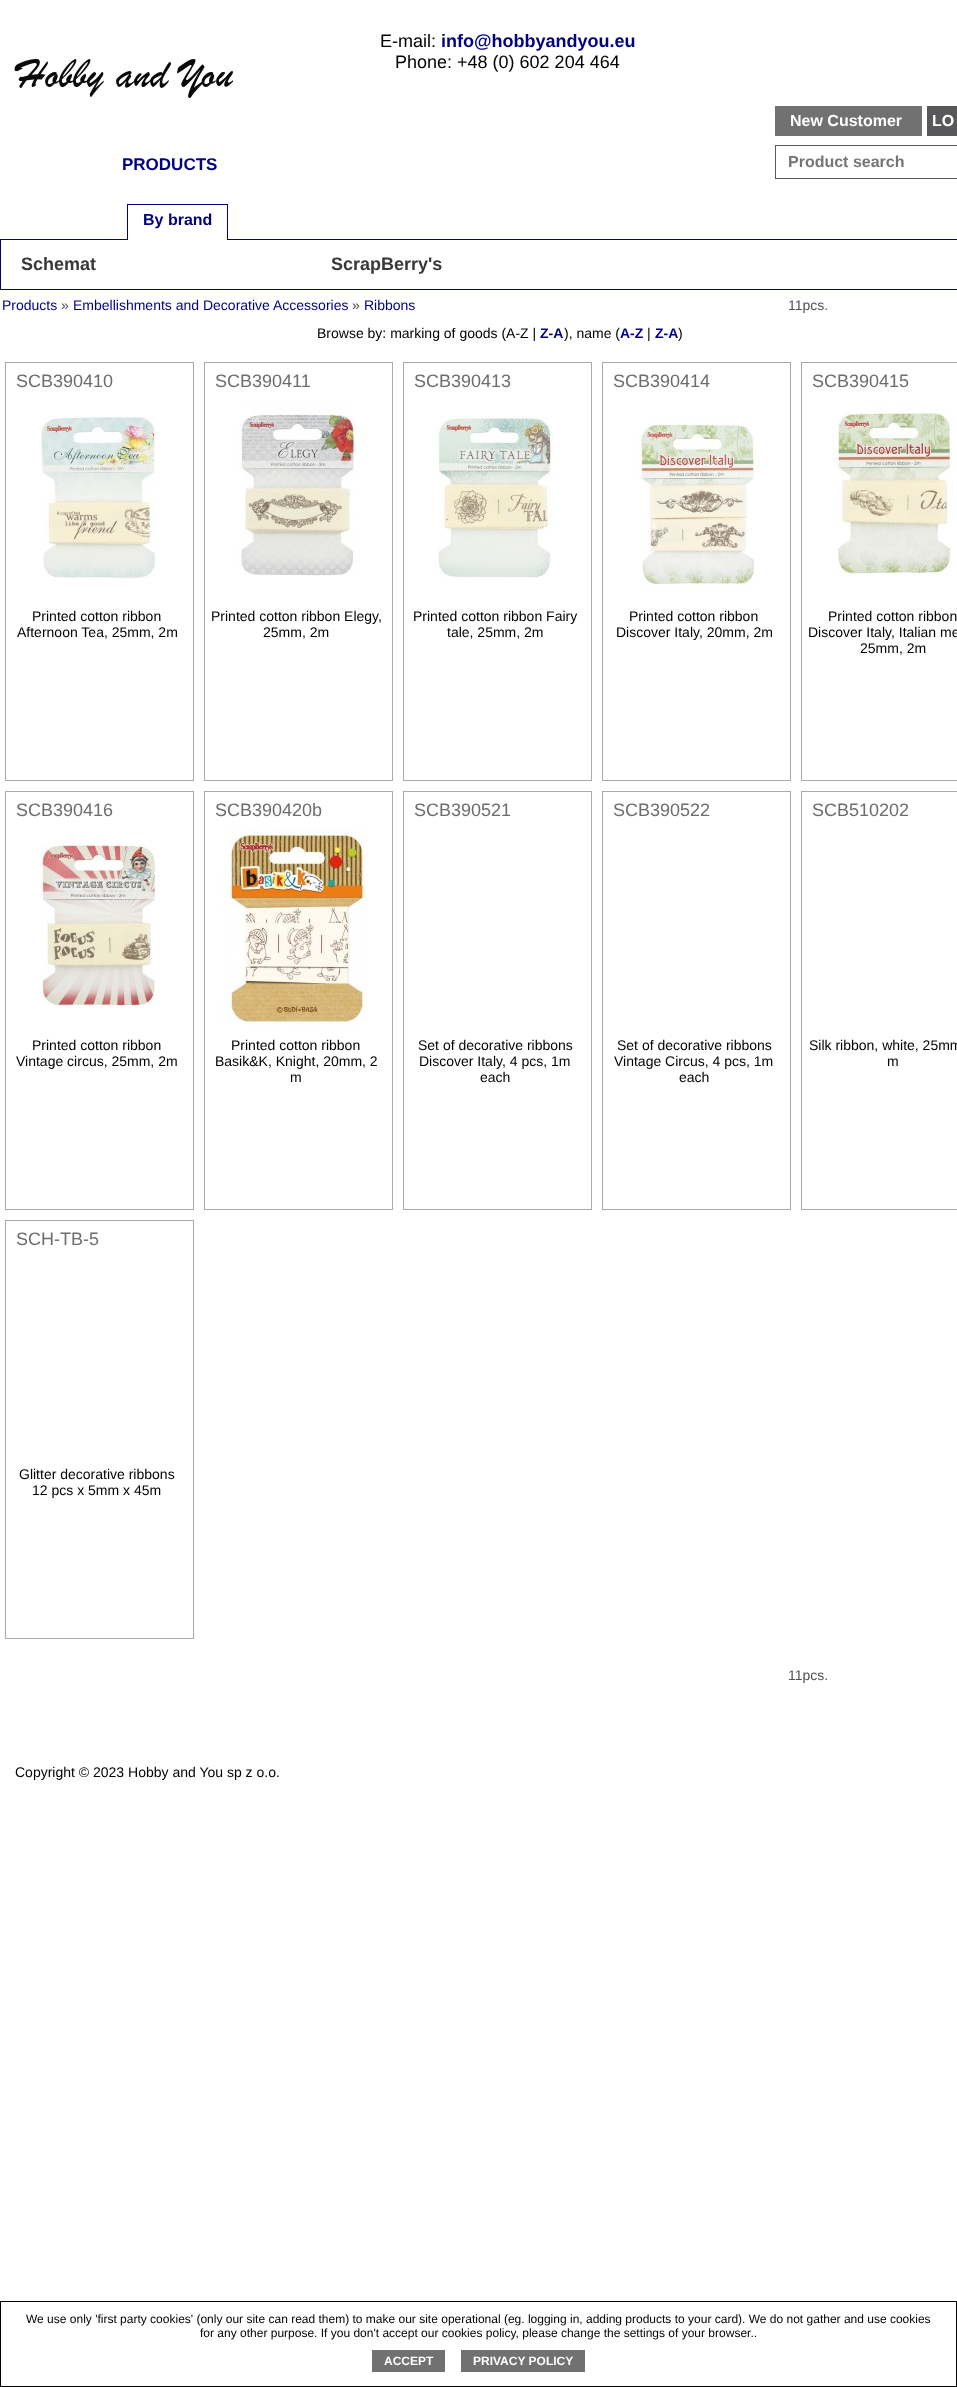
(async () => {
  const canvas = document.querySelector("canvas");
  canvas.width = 957;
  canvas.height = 2387;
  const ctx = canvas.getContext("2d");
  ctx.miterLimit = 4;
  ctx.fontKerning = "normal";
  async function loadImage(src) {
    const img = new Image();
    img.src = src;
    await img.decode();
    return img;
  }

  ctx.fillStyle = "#ffffff";
  ctx.fillRect(0, 0, 957, 2387);
  ctx.drawImage(await loadImage("img/1.png"), 14, 59, 219, 39);
  ctx.fillStyle = "#717172";
  ctx.fillRect(775, 106, 147, 30);
  ctx.fillStyle = "#58585a";
  ctx.fillRect(927, 106, 30, 30);
  ctx.strokeStyle = "#5a5a5a";
  ctx.strokeRect(775.5, 145.5, 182, 33);
  ctx.strokeStyle = "#000080";
  ctx.strokeRect(0.5, 239.5, 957, 50);
  for (const [x, y, w, h, color] of [
    [128, 239, 99, 1, "#ffffff"],
    [127, 204, 101, 1, "#000080"],
    [227, 204, 1, 36, "#000080"],
    [127, 204, 1, 36, "#000080"],
  ]) {
    ctx.fillStyle = color;
    ctx.fillRect(x, y, w, h);
  }
  ctx.strokeStyle = "#aaaaaa";
  ctx.strokeRect(5.5, 362.5, 188, 418);
  ctx.drawImage(await loadImage("img/2.png"), 41, 416, 115, 163);
  ctx.strokeRect(204.5, 362.5, 188, 418);
  ctx.drawImage(await loadImage("img/3.png"), 238, 400, 118, 176);
  ctx.strokeRect(403.5, 362.5, 188, 418);
  ctx.drawImage(await loadImage("img/4.png"), 433, 416, 120, 162);
  ctx.strokeRect(602.5, 362.5, 188, 418);
  ctx.drawImage(await loadImage("img/5.png"), 639, 416, 120, 176);
  ctx.strokeRect(801.5, 362.5, 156, 418);
  ctx.drawImage(await loadImage("img/6.png"), 833, 400, 120, 176);
  ctx.strokeRect(5.5, 791.5, 188, 418);
  ctx.drawImage(await loadImage("img/7.png"), 40, 844, 120, 162);
  ctx.strokeRect(204.5, 791.5, 188, 418);
  ctx.drawImage(await loadImage("img/8.png"), 223, 829, 144, 197);
  ctx.strokeRect(403.5, 791.5, 188, 418);
  ctx.strokeRect(602.5, 791.5, 188, 418);
  ctx.strokeRect(801.5, 791.5, 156, 418);
  ctx.strokeRect(5.5, 1220.5, 188, 418);
  ctx.strokeStyle = "#000000";
  ctx.strokeRect(0.5, 2301.5, 956, 85);
  ctx.fillStyle = "#717172";
  ctx.fillRect(372, 2350, 73, 22);
  ctx.fillRect(461, 2350, 124, 22);
  ctx.font = "18px Liberation Sans";
  ctx.fillStyle = "#000000";
  ctx.fillText("Е-mail:", 380, 47);
  ctx.font = "bold 18px Liberation Sans";
  ctx.fillStyle = "#000080";
  ctx.fillText("info@hobbyandyou.eu", 441, 47);
  ctx.font = "18px Liberation Sans";
  ctx.fillStyle = "#000000";
  ctx.fillText("Phone: +48 (0) 602 204 464", 395, 68);
  ctx.font = "bold 16px Liberation Sans";
  ctx.fillStyle = "#ffffff";
  ctx.fillText("New Customer", 790, 126);
  ctx.fillText("LO", 932, 126);
  ctx.font = "bold 17px Liberation Sans";
  ctx.fillStyle = "#000080";
  ctx.fillText("PRODUCTS", 122, 170);
  ctx.font = "bold 16px Liberation Sans";
  ctx.fillStyle = "#757575";
  ctx.fillText("Product search", 788, 167);
  ctx.fillStyle = "#000080";
  ctx.fillText("By brand", 143, 225);
  ctx.font = "bold 18px Liberation Sans";
  ctx.fillStyle = "#38383a";
  ctx.fillText("Schemat", 21, 270);
  ctx.fillText("ScrapBerry's", 331, 270);
  ctx.font = "14px Liberation Sans";
  ctx.fillStyle = "#000080";
  ctx.fillText("Products", 2, 310);
  ctx.fillStyle = "#505050";
  ctx.fillText("»", 61, 310);
  ctx.fillStyle = "#000080";
  ctx.fillText("Embellishments and Decorative Accessories", 73, 310);
  ctx.fillStyle = "#505050";
  ctx.fillText("»", 352, 310);
  ctx.fillStyle = "#000080";
  ctx.fillText("Ribbons", 364, 310);
  ctx.fillStyle = "#505050";
  ctx.fillText("11pcs.", 788, 310);
  ctx.fillStyle = "#000000";
  ctx.fillText("Browse by: marking of goods (A-Z |", 317, 338);
  ctx.font = "bold 14px Liberation Sans";
  ctx.fillStyle = "#000080";
  ctx.fillText("Z-A", 540, 338);
  ctx.font = "14px Liberation Sans";
  ctx.fillStyle = "#000000";
  ctx.fillText("), name (", 564, 338);
  ctx.font = "bold 14px Liberation Sans";
  ctx.fillStyle = "#000080";
  ctx.fillText("A-Z", 620, 338);
  ctx.font = "14px Liberation Sans";
  ctx.fillStyle = "#000000";
  ctx.fillText("|", 647, 338);
  ctx.font = "bold 14px Liberation Sans";
  ctx.fillStyle = "#000080";
  ctx.fillText("Z-A", 655, 338);
  ctx.font = "14px Liberation Sans";
  ctx.fillStyle = "#000000";
  ctx.fillText(")", 678, 338);
  ctx.font = "18px Liberation Sans";
  ctx.fillStyle = "#6d6d6d";
  ctx.fillText("SCB390410", 16, 387);
  ctx.font = "14px Liberation Sans";
  ctx.fillStyle = "#000000";
  ctx.fillText("Printed cotton ribbon", 32, 621);
  ctx.fillText("Afternoon Tea, 25mm, 2m", 17, 637);
  ctx.font = "18px Liberation Sans";
  ctx.fillStyle = "#6d6d6d";
  ctx.fillText("SCB390411", 215, 387);
  ctx.font = "14px Liberation Sans";
  ctx.fillStyle = "#000000";
  ctx.fillText("Printed cotton ribbon Elegy,", 211, 621);
  ctx.fillText("25mm, 2m", 263, 637);
  ctx.font = "18px Liberation Sans";
  ctx.fillStyle = "#6d6d6d";
  ctx.fillText("SCB390413", 414, 387);
  ctx.font = "14px Liberation Sans";
  ctx.fillStyle = "#000000";
  ctx.fillText("Printed cotton ribbon Fairy", 413, 621);
  ctx.fillText("tale, 25mm, 2m", 447, 637);
  ctx.font = "18px Liberation Sans";
  ctx.fillStyle = "#6d6d6d";
  ctx.fillText("SCB390414", 613, 387);
  ctx.font = "14px Liberation Sans";
  ctx.fillStyle = "#000000";
  ctx.fillText("Printed cotton ribbon", 629, 621);
  ctx.fillText("Discover Italy, 20mm, 2m", 616, 637);
  ctx.font = "18px Liberation Sans";
  ctx.fillStyle = "#6d6d6d";
  ctx.fillText("SCB390415", 812, 387);
  ctx.font = "14px Liberation Sans";
  ctx.fillStyle = "#000000";
  for (const [text, x, y] of [
    ["Printed cotton ribbon", 828, 621],
    ["Discover Italy, Italian me", 808, 637],
    ["25mm, 2m", 860, 653],
  ]) {
    ctx.fillText(text, x, y);
  }
  ctx.font = "18px Liberation Sans";
  ctx.fillStyle = "#6d6d6d";
  ctx.fillText("SCB390416", 16, 816);
  ctx.font = "14px Liberation Sans";
  ctx.fillStyle = "#000000";
  ctx.fillText("Printed cotton ribbon", 32, 1050);
  ctx.fillText("Vintage circus, 25mm, 2m", 16, 1066);
  ctx.font = "18px Liberation Sans";
  ctx.fillStyle = "#6d6d6d";
  ctx.fillText("SCB390420b", 215, 816);
  ctx.font = "14px Liberation Sans";
  ctx.fillStyle = "#000000";
  for (const [text, x, y] of [
    ["Printed cotton ribbon", 231, 1050],
    ["Basik&K, Knight, 20mm, 2", 215, 1066],
    ["m", 290, 1082],
  ]) {
    ctx.fillText(text, x, y);
  }
  ctx.font = "18px Liberation Sans";
  ctx.fillStyle = "#6d6d6d";
  ctx.fillText("SCB390521", 414, 816);
  ctx.font = "14px Liberation Sans";
  ctx.fillStyle = "#000000";
  for (const [text, x, y] of [
    ["Set of decorative ribbons", 418, 1050],
    ["Discover Italy, 4 pcs, 1m", 419, 1066],
    ["each", 480, 1082],
  ]) {
    ctx.fillText(text, x, y);
  }
  ctx.font = "18px Liberation Sans";
  ctx.fillStyle = "#6d6d6d";
  ctx.fillText("SCB390522", 613, 816);
  ctx.font = "14px Liberation Sans";
  ctx.fillStyle = "#000000";
  for (const [text, x, y] of [
    ["Set of decorative ribbons", 617, 1050],
    ["Vintage Circus, 4 pcs, 1m", 614, 1066],
    ["each", 679, 1082],
  ]) {
    ctx.fillText(text, x, y);
  }
  ctx.font = "18px Liberation Sans";
  ctx.fillStyle = "#6d6d6d";
  ctx.fillText("SCB510202", 812, 816);
  ctx.font = "14px Liberation Sans";
  ctx.fillStyle = "#000000";
  ctx.fillText("Silk ribbon, white, 25mm", 809, 1050);
  ctx.fillText("m", 887, 1066);
  ctx.font = "18px Liberation Sans";
  ctx.fillStyle = "#6d6d6d";
  ctx.fillText("SCH-TB-5", 16, 1245);
  ctx.font = "14px Liberation Sans";
  ctx.fillStyle = "#000000";
  ctx.fillText("Glitter decorative ribbons", 19, 1479);
  ctx.fillText("12 pcs x 5mm x 45m", 32, 1495);
  ctx.fillStyle = "#505050";
  ctx.fillText("11pcs.", 788, 1680);
  ctx.fillStyle = "#000000";
  ctx.fillText("Copyright © 2023 Hobby and You sp z o.o.", 15, 1777);
  ctx.font = "12px Liberation Sans";
  ctx.fillText("We use only 'first party cookies' (only our site can read them) to make our site operational (eg. logging in, adding products to your card). We do not gather and use cookies", 26, 2323);
  ctx.fillText("for any other purpose. If you don't accept our cookies policy, please change the settings of your browser..", 200, 2337);
  ctx.font = "bold 12px Liberation Sans";
  ctx.fillStyle = "#ffffff";
  ctx.fillText("ACCEPT", 384, 2365);
  ctx.fillText("PRIVACY POLICY", 473, 2365);
})();
